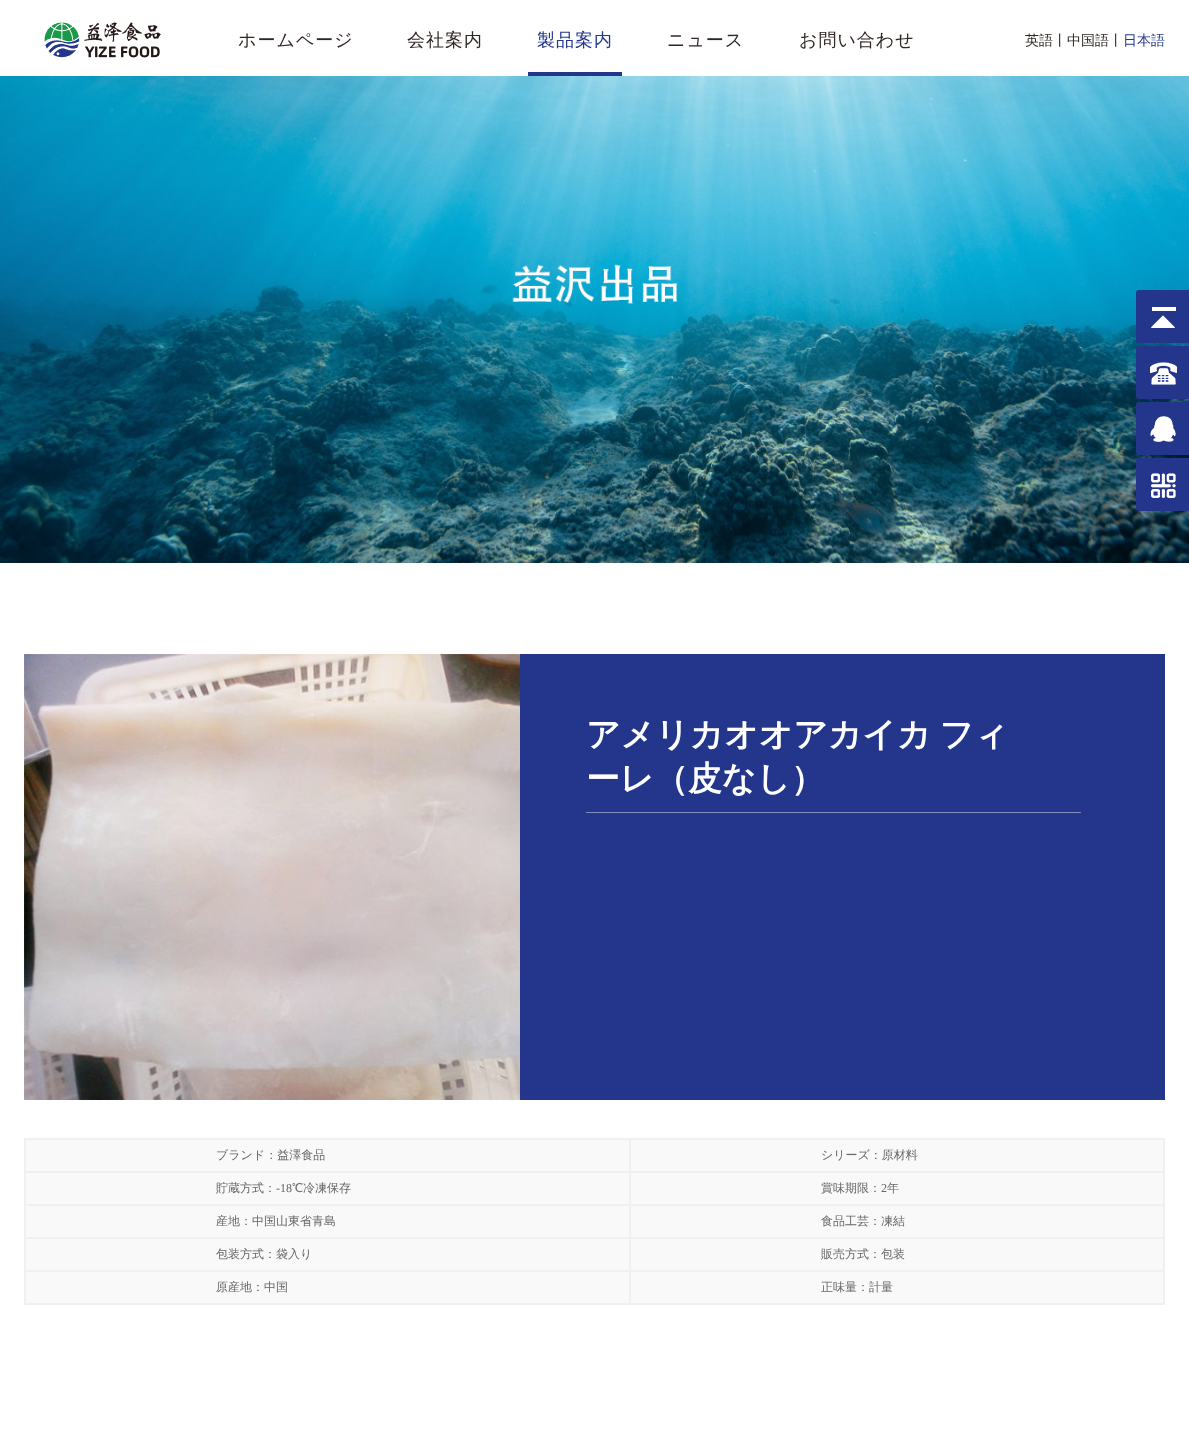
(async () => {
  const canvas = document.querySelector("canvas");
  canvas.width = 1189;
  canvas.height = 1452;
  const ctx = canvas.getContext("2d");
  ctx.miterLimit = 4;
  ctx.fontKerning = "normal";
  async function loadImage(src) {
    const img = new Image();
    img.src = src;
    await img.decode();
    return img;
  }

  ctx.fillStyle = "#ffffff";
  ctx.fillRect(0, 0, 1189, 1452);
  ctx.drawImage(await loadImage("img/1.png"), 44, 22, 117, 36);
  ctx.fillStyle = "#23368b";
  ctx.fillRect(528, 72, 94, 4);
  ctx.drawImage(await loadImage("img/2.png"), 0, 76, 1189, 487);
  ctx.fillRect(520, 654, 645, 446);
  ctx.drawImage(await loadImage("img/3.png"), 24, 654, 496, 446);
  for (const [x, y, w, h, color] of [
    [586, 812, 495, 1, "#838dbd"],
    [26, 1140, 603, 31, "#f9f9f9"],
    [629, 1138, 536, 2, "#f0f0f0"],
    [629, 1171, 536, 2, "#f0f0f0"],
    [629, 1204, 536, 2, "#f0f0f0"],
    [629, 1237, 536, 2, "#f0f0f0"],
    [629, 1270, 536, 2, "#f0f0f0"],
    [1163, 1270, 2, 35, "#f0f0f0"],
    [629, 1303, 536, 2, "#f0f0f0"],
    [629, 1270, 2, 35, "#f0f0f0"],
    [24, 1270, 607, 2, "#f0f0f0"],
    [629, 1237, 2, 35, "#f0f0f0"],
    [24, 1237, 607, 2, "#f0f0f0"],
    [629, 1204, 2, 35, "#f0f0f0"],
    [24, 1204, 607, 2, "#f0f0f0"],
    [629, 1171, 2, 35, "#f0f0f0"],
    [24, 1171, 607, 2, "#f0f0f0"],
    [629, 1138, 2, 35, "#f0f0f0"],
    [24, 1138, 607, 2, "#f0f0f0"],
    [24, 1303, 607, 2, "#f0f0f0"],
    [24, 1270, 2, 35, "#f0f0f0"],
    [24, 1237, 2, 35, "#f0f0f0"],
    [24, 1204, 2, 35, "#f0f0f0"],
    [24, 1171, 2, 35, "#f0f0f0"],
    [24, 1138, 2, 35, "#f0f0f0"],
    [631, 1140, 532, 31, "#f9f9f9"],
    [1163, 1237, 2, 35, "#f0f0f0"],
    [1163, 1204, 2, 35, "#f0f0f0"],
    [1163, 1171, 2, 35, "#f0f0f0"],
    [1163, 1138, 2, 35, "#f0f0f0"],
    [26, 1173, 603, 31, "#f9f9f9"],
    [631, 1173, 532, 31, "#f9f9f9"],
    [26, 1206, 603, 31, "#f9f9f9"],
    [631, 1206, 532, 31, "#f9f9f9"],
    [26, 1239, 603, 31, "#f9f9f9"],
    [631, 1239, 532, 31, "#f9f9f9"],
    [26, 1272, 603, 31, "#f9f9f9"],
    [631, 1272, 532, 31, "#f9f9f9"],
  ]) {
    ctx.fillStyle = color;
    ctx.fillRect(x, y, w, h);
  }
  ctx.fillStyle = "#23368b";
  ctx.beginPath();
  ctx.roundRect(1136, 290, 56, 53, 3);
  ctx.fill();
  ctx.drawImage(await loadImage("img/4.png"), 1151, 307, 25, 21);
  ctx.beginPath();
  ctx.roundRect(1136, 346, 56, 53, 3);
  ctx.fill();
  ctx.drawImage(await loadImage("img/5.png"), 1150, 362, 27, 23);
  ctx.beginPath();
  ctx.roundRect(1136, 402, 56, 53, 3);
  ctx.fill();
  ctx.drawImage(await loadImage("img/6.png"), 1150, 416, 26, 26);
  ctx.beginPath();
  ctx.roundRect(1136, 458, 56, 53, 3);
  ctx.fill();
  ctx.drawImage(await loadImage("img/7.png"), 1151, 473, 25, 25);
  ctx.letterSpacing = "1px";
  ctx.font = "500 18px WenQuanYi Zen Hei";
  ctx.fillStyle = "#302623";
  ctx.fillText("ホームページ", 238, 46);
  ctx.fillText("会社案内", 407, 46);
  ctx.fillStyle = "#23368b";
  ctx.fillText("製品案内", 537, 46);
  ctx.fillStyle = "#302623";
  ctx.fillText("ニュース", 667, 46);
  ctx.fillText("お問い合わせ", 799, 46);
  ctx.letterSpacing = "0px";
  ctx.font = "500 14px WenQuanYi Zen Hei";
  ctx.fillText("英語丨中国語丨", 1025, 45);
  ctx.fillStyle = "#23368b";
  ctx.fillText("日本語", 1123, 45);
  ctx.wordSpacing = "-2px";
  ctx.font = "bold 33.75px WenQuanYi Zen Hei";
  ctx.fillStyle = "#ffffff";
  ctx.fillText("アメリカオオアカイカ フィ", 586, 746);
  ctx.wordSpacing = "0px";
  ctx.fillText("ーレ（皮なし）", 586, 790);
  ctx.font = "500 12px WenQuanYi Zen Hei";
  ctx.fillStyle = "#666666";
  for (const [text, x, y] of [
    ["ブランド：益澤食品", 216, 1159],
    ["シリーズ：原材料", 821, 1159],
    ["貯蔵方式：", 216, 1192],
  ]) {
    ctx.fillText(text, x, y);
  }
  ctx.font = "12px Liberation Serif";
  ctx.fillText("-18", 276, 1192);
  ctx.font = "500 12px WenQuanYi Zen Hei";
  ctx.fillText("℃冷凍保存", 292, 1192);
  ctx.fillText("賞味期限：", 821, 1192);
  ctx.font = "12px Liberation Serif";
  ctx.fillText("2", 881, 1192);
  ctx.font = "500 12px WenQuanYi Zen Hei";
  for (const [text, x, y] of [
    ["年", 887, 1192],
    ["産地：中国山東省青島", 216, 1225],
    ["食品工芸：凍結", 821, 1225],
    ["包装方式：袋入り", 216, 1258],
    ["販売方式：包装", 821, 1258],
    ["原産地：中国", 216, 1291],
    ["正味量：計量", 821, 1291],
  ]) {
    ctx.fillText(text, x, y);
  }
})();
